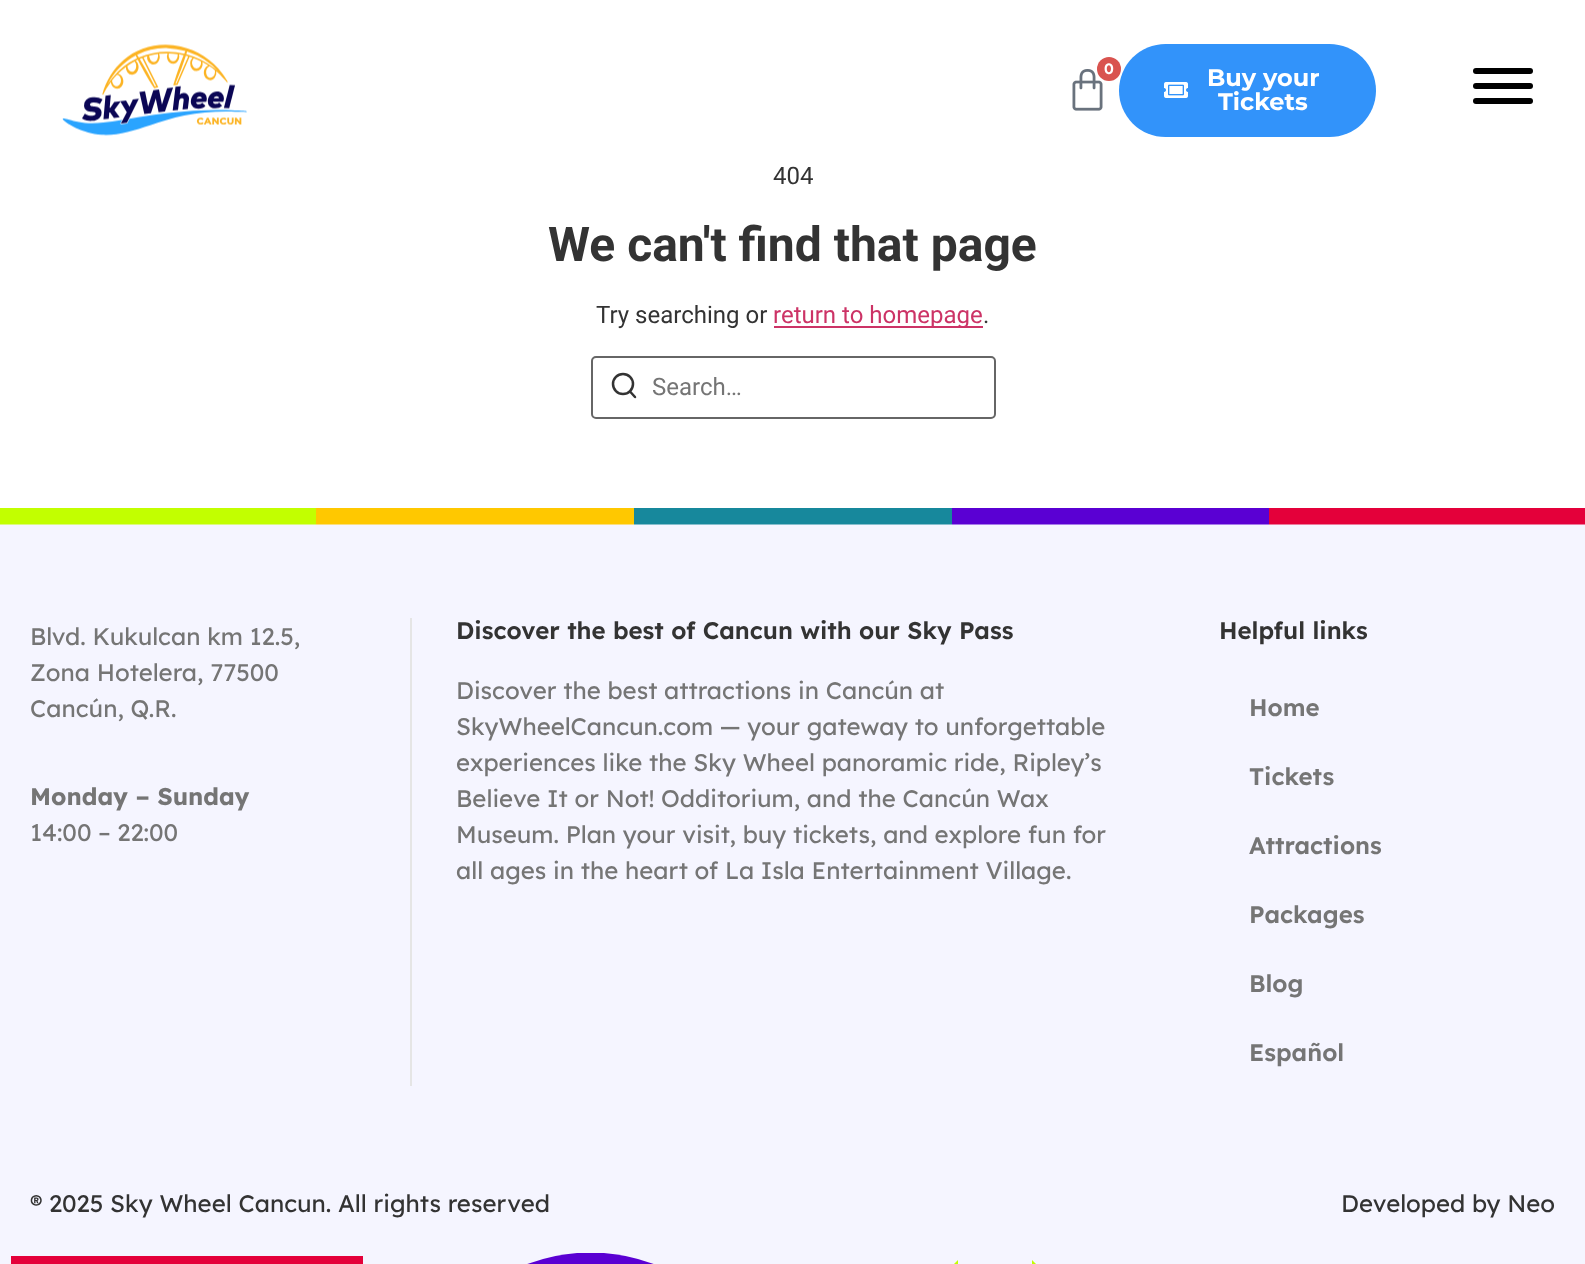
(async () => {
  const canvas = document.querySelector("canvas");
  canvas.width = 1585;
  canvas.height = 1264;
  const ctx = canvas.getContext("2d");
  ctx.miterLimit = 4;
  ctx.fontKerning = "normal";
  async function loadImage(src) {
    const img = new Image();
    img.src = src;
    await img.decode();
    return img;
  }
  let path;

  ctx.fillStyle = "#ffffff";
  ctx.fillRect(0, 0, 1585, 1264);
  ctx.drawImage(await loadImage("img/1.png"), 62, 44, 185, 92);
  ctx.drawImage(await loadImage("img/2.png"), 1072, 69, 31, 42);
  ctx.fillStyle = "#d9534f";
  ctx.beginPath();
  ctx.arc(1109, 69, 12, 0, Math.PI * 2);
  ctx.fill();
  ctx.fillStyle = "#3293fa";
  ctx.beginPath();
  ctx.roundRect(1119, 44, 257, 93, 46.5);
  ctx.fill();
  ctx.drawImage(await loadImage("img/3.png"), 1164, 82, 24, 16);
  ctx.fillStyle = "#000000";
  ctx.beginPath();
  ctx.roundRect(1473, 68, 60, 6, 3);
  ctx.fill();
  ctx.beginPath();
  ctx.roundRect(1473, 83, 60, 6, 3);
  ctx.fill();
  ctx.beginPath();
  ctx.roundRect(1473, 98, 60, 6, 3);
  ctx.fill();
  ctx.fillStyle = "#cc3366";
  ctx.fillRect(774, 326, 209, 2);
  ctx.beginPath();
  ctx.roundRect(592, 357, 403, 61, 4);
  ctx.strokeStyle = "#666666";
  ctx.lineWidth = 2;
  ctx.stroke();
  ctx.beginPath();
  ctx.arc(623, 384, 10, 0, Math.PI * 2);
  ctx.strokeStyle = "#333333";
  ctx.lineWidth = 2.5;
  ctx.stroke();
  path = new Path2D("M635 397L630 391.5");
  ctx.lineCap = "round";
  ctx.lineJoin = "round";
  ctx.stroke(path);
  ctx.fillStyle = "#f5f5ff";
  ctx.fillRect(0, 524, 1585, 740);
  ctx.drawImage(await loadImage("img/4.png"), 0, 508, 1585, 17);
  ctx.fillStyle = "#e5e5e5";
  ctx.fillRect(410, 618, 2, 468);
  ctx.fillStyle = "#e4003a";
  ctx.fillRect(11, 1256, 352, 8);
  ctx.save();
  ctx.beginPath();
  ctx.rect(411, 1253, 360, 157);
  ctx.clip();
  ctx.fillStyle = "#5a00d3";
  ctx.beginPath();
  ctx.arc(590.5, 1432, 179.5, 0, Math.PI * 2);
  ctx.fill();
  ctx.restore();
  ctx.fillStyle = "#c2ff00";
  path = new Path2D("M958 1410H808L958 1260Z");
  ctx.fill(path);
  path = new Path2D("M1182 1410H1032V1260Z");
  ctx.fill(path);
  ctx.font = "600 15px Lexend Deca";
  ctx.fillStyle = "#ffffff";
  ctx.fillText("0", 1104, 74);
  ctx.font = "bold 24px Montserrat";
  ctx.fillText("Buy your", 1207, 86);
  ctx.fillText("Tickets", 1218, 110);
  ctx.font = "24px Roboto";
  ctx.fillStyle = "#333333";
  ctx.fillText("404", 773, 184);
  ctx.font = "bold 48px Roboto";
  ctx.fillText("We can't find that page", 548, 261);
  ctx.font = "24px Roboto";
  ctx.fillText("Try searching or", 596, 323);
  ctx.fillStyle = "#cc3366";
  ctx.fillText("return to homepage", 773, 323);
  ctx.fillStyle = "#333333";
  ctx.fillText(".", 983, 323);
  ctx.fillStyle = "#757575";
  ctx.fillText("Search…", 652, 395);
  ctx.font = "24px Lexend";
  for (const [text, x, y] of [
    ["Blvd. Kukulcan km 12.5,", 30, 645],
    ["Zona Hotelera, 77500", 30, 681],
    ["Cancún, Q.R.", 30, 717],
  ]) {
    ctx.fillText(text, x, y);
  }
  ctx.font = "bold 24px Lexend";
  ctx.fillText("Monday – Sunday", 30, 805);
  ctx.font = "24px Lexend";
  ctx.fillText("14:00 – 22:00", 30, 841);
  ctx.font = "600 24px Lexend Deca";
  ctx.fillStyle = "#333333";
  ctx.fillText("Discover the best of Cancun with our Sky Pass", 456, 639);
  ctx.font = "24px Lexend";
  ctx.fillStyle = "#757575";
  for (const [text, x, y] of [
    ["Discover the best attractions in Cancún at", 456, 699],
    ["SkyWheelCancun.com — your gateway to unforgettable", 456, 735],
    ["experiences like the Sky Wheel panoramic ride, Ripley’s", 456, 771],
    ["Believe It or Not! Odditorium, and the Cancún Wax", 456, 807],
    ["Museum. Plan your visit, buy tickets, and explore fun for", 456, 843],
    ["all ages in the heart of La Isla Entertainment Village.", 456, 879],
  ]) {
    ctx.fillText(text, x, y);
  }
  ctx.font = "600 24px Lexend Deca";
  ctx.fillStyle = "#333333";
  ctx.fillText("Helpful links", 1219, 639);
  ctx.fillStyle = "#757575";
  for (const [text, x, y] of [
    ["Home", 1249, 716],
    ["Tickets", 1249, 785],
    ["Attractions", 1249, 854],
    ["Packages", 1249, 923],
    ["Blog", 1249, 992],
    ["Español", 1249, 1061],
  ]) {
    ctx.fillText(text, x, y);
  }
  ctx.font = "24px Lexend";
  ctx.fillStyle = "#333333";
  ctx.fillText("® 2025 Sky Wheel Cancun. All rights reserved", 30, 1212);
  ctx.fillText("Developed by Neo", 1341, 1212);
})();
